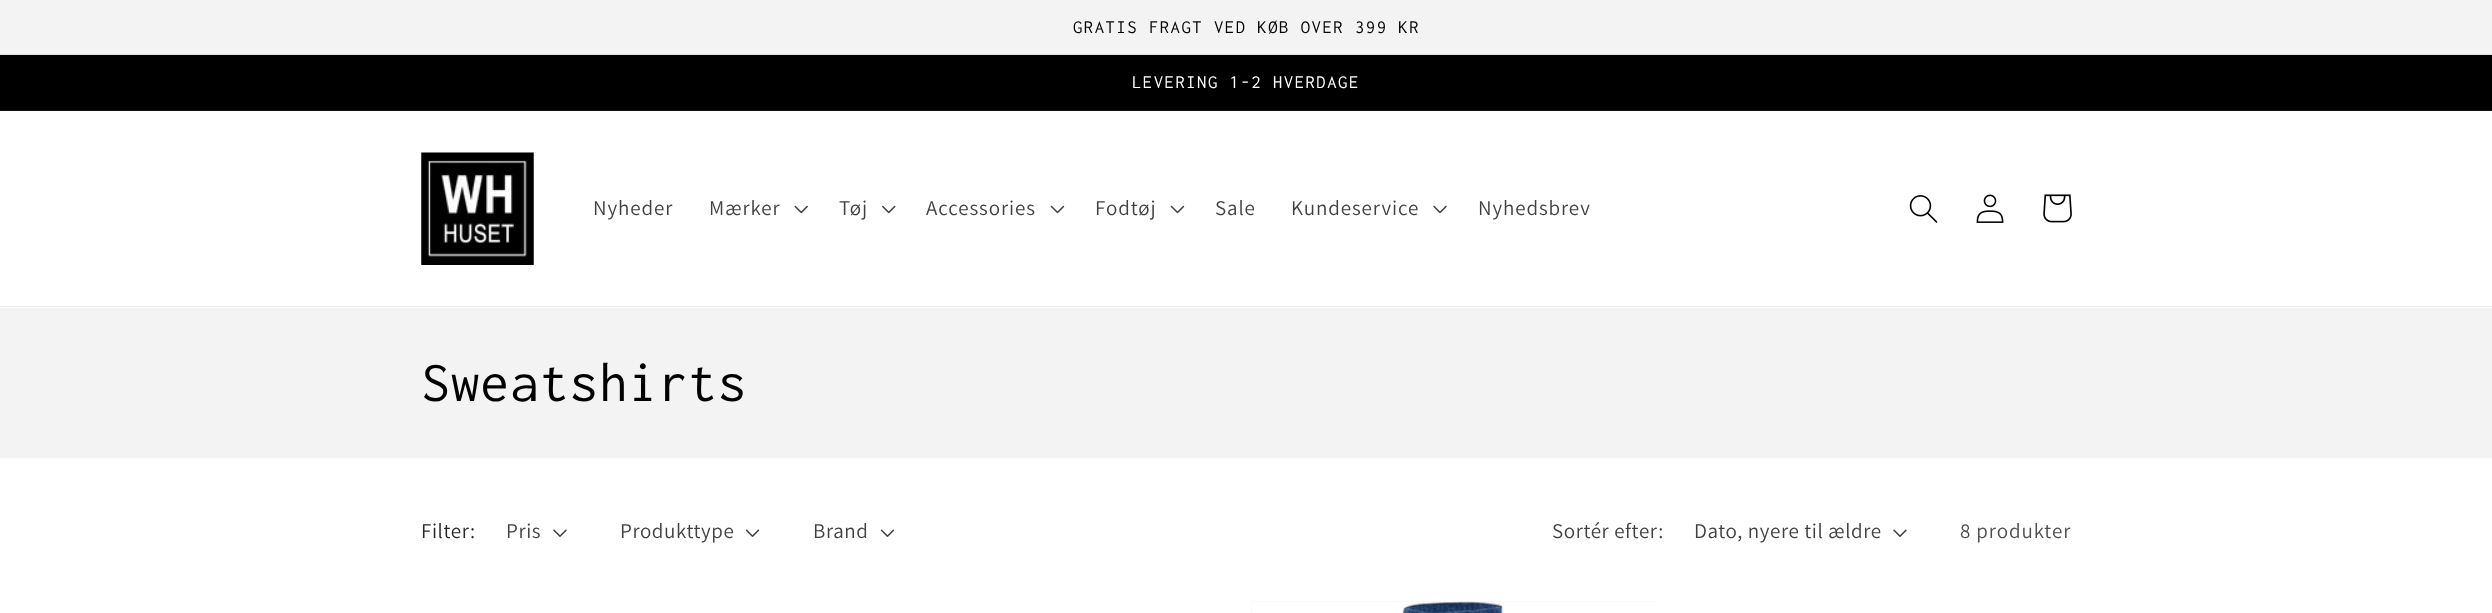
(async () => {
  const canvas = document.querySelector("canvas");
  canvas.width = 2492;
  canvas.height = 613;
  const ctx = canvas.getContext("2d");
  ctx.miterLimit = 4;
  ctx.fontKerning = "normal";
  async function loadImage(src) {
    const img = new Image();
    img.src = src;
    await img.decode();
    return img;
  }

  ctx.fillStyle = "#ffffff";
  ctx.fillRect(0, 0, 2492, 613);
  for (const [x, y, w, h, color] of [
    [0, 0, 2492, 54, "#f3f3f3"],
    [0, 54, 2492, 1, "#e0e0e0"],
    [0, 55, 2492, 55, "#000000"],
    [0, 110, 2492, 1, "#141414"],
    [0, 306, 2492, 1, "#ebebeb"],
  ]) {
    ctx.fillStyle = color;
    ctx.fillRect(x, y, w, h);
  }
  ctx.drawImage(await loadImage("img/1.png"), 421, 152, 113, 113);
  ctx.drawImage(await loadImage("img/2.png"), 794, 205, 14, 9);
  ctx.drawImage(await loadImage("img/3.png"), 882, 205, 14, 9);
  ctx.drawImage(await loadImage("img/4.png"), 1050, 205, 15, 9);
  ctx.drawImage(await loadImage("img/4.png"), 1170, 205, 15, 9);
  ctx.drawImage(await loadImage("img/5.png"), 1433, 205, 14, 9);
  ctx.drawImage(await loadImage("img/6.png"), 1909, 195, 29, 28);
  ctx.drawImage(await loadImage("img/7.png"), 1976, 194, 28, 29);
  ctx.drawImage(await loadImage("img/8.png"), 2043, 194, 29, 29);
  ctx.fillStyle = "#f3f3f3";
  ctx.fillRect(0, 308, 2492, 150);
  ctx.drawImage(await loadImage("img/9.png"), 553, 529, 14, 8);
  ctx.drawImage(await loadImage("img/10.png"), 745, 529, 15, 8);
  ctx.drawImage(await loadImage("img/10.png"), 880, 529, 15, 8);
  ctx.drawImage(await loadImage("img/9.png"), 1893, 529, 14, 8);
  ctx.fillRect(1251, 601, 405, 12);
  ctx.drawImage(await loadImage("img/11.png"), 1251, 601, 405, 12);
  ctx.letterSpacing = "1.5px";
  ctx.font = "18.7px Inconsolata";
  ctx.fillStyle = "#000000";
  ctx.fillText("GRATIS FRAGT VED KØB OVER 399 KR", 1073, 33);
  ctx.fillStyle = "#ffffff";
  ctx.fillText("LEVERING 1-2 HVERDAGE", 1132, 88);
  ctx.letterSpacing = "0.9px";
  ctx.font = "21px Assistant";
  ctx.fillStyle = "#404040";
  for (const [text, x, y] of [
    ["Nyheder", 593, 215],
    ["Mærker", 709, 215],
    ["Tøj", 839, 215],
    ["Accessories", 926, 215],
    ["Fodtøj", 1095, 215],
    ["Sale", 1215, 215],
    ["Kundeservice", 1291, 215],
    ["Nyhedsbrev", 1478, 215],
  ]) {
    ctx.fillText(text, x, y);
  }
  ctx.font = "57.5px Inconsolata";
  ctx.fillStyle = "#000000";
  ctx.fillText("Sweatshirts", 421, 401);
  ctx.letterSpacing = "0.6px";
  ctx.font = "21px Assistant";
  ctx.fillStyle = "#262626";
  ctx.fillText("Filter:", 421, 538);
  ctx.fillStyle = "#404040";
  for (const [text, x, y] of [
    ["Pris", 506, 538],
    ["Produkttype", 620, 538],
    ["Brand", 813, 538],
    ["Sortér efter:", 1552, 538],
    ["Dato, nyere til ældre", 1694, 538],
  ]) {
    ctx.fillText(text, x, y);
  }
  ctx.letterSpacing = "0.9px";
  ctx.fillStyle = "#4d4d4d";
  ctx.fillText("8 produkter", 1960, 538);
})();
